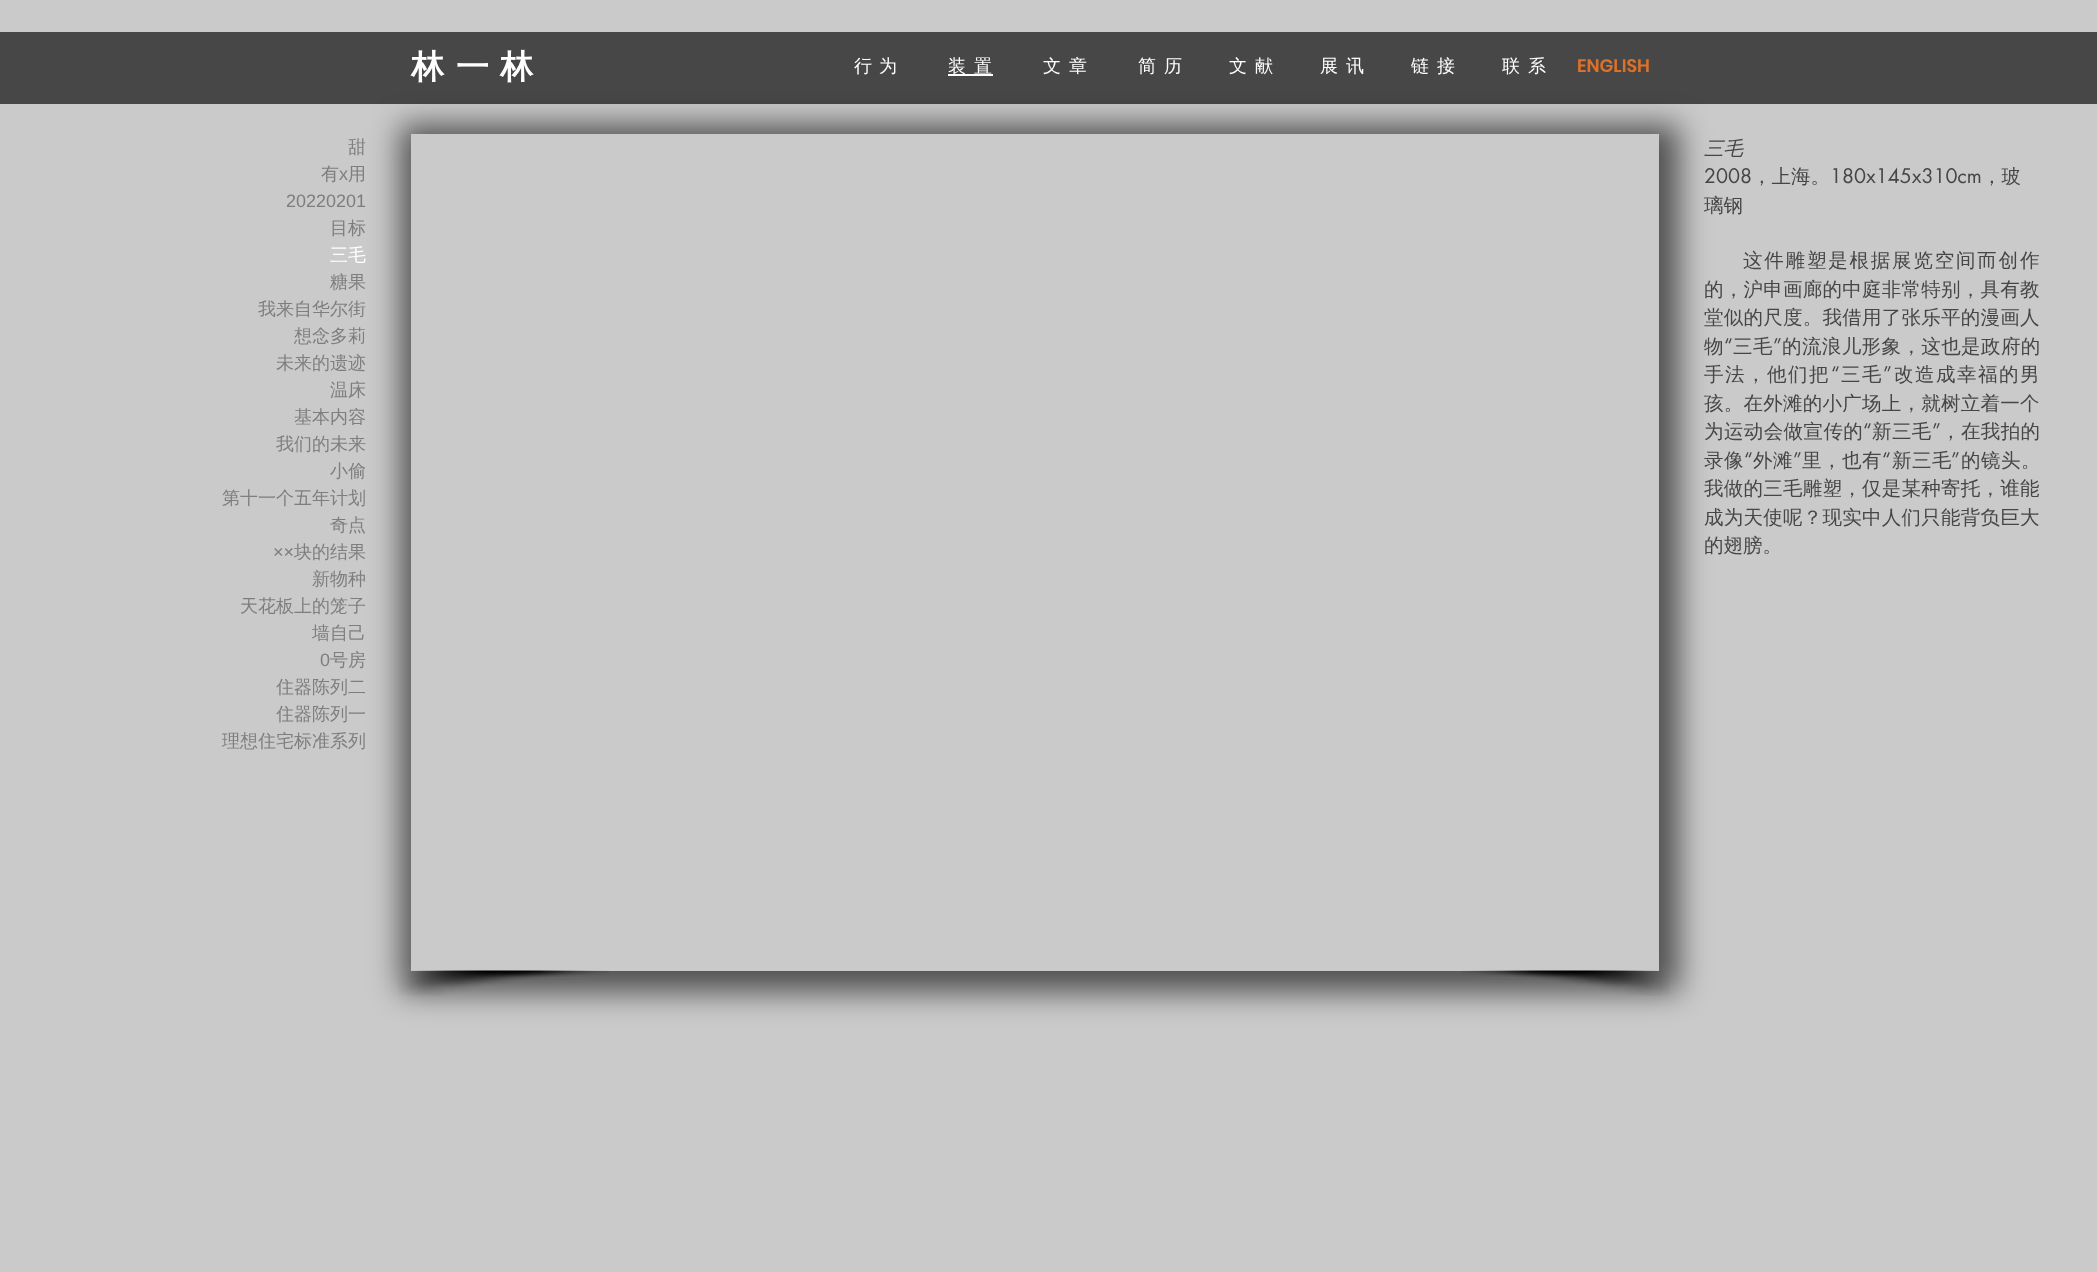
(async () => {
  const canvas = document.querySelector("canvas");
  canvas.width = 2097;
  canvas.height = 1272;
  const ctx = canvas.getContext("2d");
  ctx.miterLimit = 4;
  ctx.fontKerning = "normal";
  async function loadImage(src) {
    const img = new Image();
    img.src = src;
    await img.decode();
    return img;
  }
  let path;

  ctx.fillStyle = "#cacaca";
  ctx.fillRect(0, 0, 2097, 1272);
  ctx.fillStyle = "#474747";
  ctx.fillRect(0, 32, 2097, 72);
  ctx.fillStyle = "#ffffff";
  ctx.fillRect(948, 74, 45, 2);
  ctx.save();
  path = new Path2D("M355 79H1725V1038H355ZM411 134H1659V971H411Z");
  ctx.clip(path, "evenodd");
  ctx.fillStyle = "rgba(0, 0, 0, 0.6)";
  ctx.filter = "blur(15px)";
  ctx.beginPath();
  ctx.rect(401, 125, 1278, 867);
  ctx.fill();
  ctx.filter = "none";
  ctx.restore();
  ctx.drawImage(await loadImage("img/1.png"), 398, 970, 211, 26);
  ctx.drawImage(await loadImage("img/2.png"), 1461, 970, 209, 26);
  ctx.font = "bold 33px WenQuanYi Zen Hei";
  for (const [text, x, y] of [
    ["林", 411, 78],
    ["一", 456, 78],
    ["林", 500, 78],
  ]) {
    ctx.fillText(text, x, y);
  }
  ctx.font = "500 18px WenQuanYi Zen Hei";
  for (const [text, x, y] of [
    ["行", 854, 72],
    ["为", 879, 72],
    ["装", 948, 72],
    ["置", 974, 72],
    ["文", 1043, 72],
    ["章", 1069, 72],
    ["简", 1138, 72],
    ["历", 1164, 72],
    ["文", 1229, 72],
    ["献", 1255, 72],
    ["展", 1320, 72],
    ["讯", 1346, 72],
    ["链", 1411, 72],
    ["接", 1437, 72],
    ["联", 1502, 72],
    ["系", 1528, 72],
  ]) {
    ctx.fillText(text, x, y);
  }
  ctx.font = "600 18px Poppins";
  ctx.fillStyle = "#de7128";
  ctx.fillText("ENGLISH", 1577, 72);
  ctx.font = "500 18px WenQuanYi Zen Hei";
  ctx.fillStyle = "#7f7e7e";
  ctx.fillText("甜", 348, 153);
  ctx.fillText("有", 321, 180);
  ctx.font = "18px Liberation Sans";
  ctx.fillText("x", 339, 180);
  ctx.font = "500 18px WenQuanYi Zen Hei";
  ctx.fillText("用", 348, 180);
  ctx.font = "18px Liberation Sans";
  ctx.fillText("20220201", 286, 207);
  ctx.font = "500 18px WenQuanYi Zen Hei";
  ctx.fillText("目标", 330, 234);
  ctx.fillStyle = "#ffffff";
  ctx.fillText("三毛", 330, 261);
  ctx.fillStyle = "#7f7e7e";
  for (const [text, x, y] of [
    ["糖果", 330, 288],
    ["我来自华尔街", 258, 315],
    ["想念多莉", 294, 342],
    ["未来的遗迹", 276, 369],
    ["温床", 330, 396],
    ["基本内容", 294, 423],
    ["我们的未来", 276, 450],
    ["小偷", 330, 477],
    ["第十一个五年计划", 222, 504],
    ["奇点", 330, 531],
  ]) {
    ctx.fillText(text, x, y);
  }
  ctx.font = "18px Liberation Sans";
  ctx.fillText("××", 273, 558);
  ctx.font = "500 18px WenQuanYi Zen Hei";
  for (const [text, x, y] of [
    ["块的结果", 294, 558],
    ["新物种", 312, 585],
    ["天花板上的笼子", 240, 612],
    ["墙自己", 312, 639],
  ]) {
    ctx.fillText(text, x, y);
  }
  ctx.font = "18px Liberation Sans";
  ctx.fillText("0", 320, 666);
  ctx.font = "500 18px WenQuanYi Zen Hei";
  for (const [text, x, y] of [
    ["号房", 330, 666],
    ["住器陈列二", 276, 693],
    ["住器陈列一", 276, 720],
    ["理想住宅标准系列", 222, 747],
  ]) {
    ctx.fillText(text, x, y);
  }
  ctx.font = "italic 500 19.5px WenQuanYi Zen Hei";
  ctx.fillStyle = "#464646";
  ctx.fillText("三毛", 1704, 155);
  ctx.font = "19.5px futura";
  ctx.fillText("2008", 1704, 183);
  ctx.font = "500 19.5px WenQuanYi Zen Hei";
  ctx.fillText("，上海。", 1752, 183);
  ctx.font = "19.5px futura";
  ctx.fillText("180x145x310cm", 1830, 183);
  ctx.font = "500 19.5px WenQuanYi Zen Hei";
  ctx.fillText("，玻", 1982, 183);
  ctx.fillText("璃钢", 1704, 212);
  ctx.letterSpacing = "1.8px";
  ctx.fillText("这件雕塑是根据展览空间而创作", 1743, 267);
  ctx.letterSpacing = "0.25px";
  ctx.fillText("的，沪申画廊的中庭非常特别，具有教", 1704, 296);
  ctx.fillText("堂似的尺度。我借用了张乐平的漫画人", 1704, 324);
  ctx.letterSpacing = "0.4px";
  ctx.fillText("物", 1704, 353);
  ctx.font = "19.5px futura";
  ctx.fillText("“", 1724, 353);
  ctx.font = "500 19.5px WenQuanYi Zen Hei";
  ctx.fillText("三毛", 1733, 353);
  ctx.font = "19.5px futura";
  ctx.fillText("”", 1773, 353);
  ctx.font = "500 19.5px WenQuanYi Zen Hei";
  ctx.fillText("的流浪儿形象，这也是政府的", 1782, 353);
  ctx.letterSpacing = "1.5px";
  ctx.fillText("手法，他们把", 1704, 381);
  ctx.font = "19.5px futura";
  ctx.fillText("“", 1831, 381);
  ctx.font = "500 19.5px WenQuanYi Zen Hei";
  ctx.fillText("三毛", 1841, 381);
  ctx.font = "19.5px futura";
  ctx.fillText("”", 1883, 381);
  ctx.font = "500 19.5px WenQuanYi Zen Hei";
  ctx.fillText("改造成幸福的男", 1894, 381);
  ctx.letterSpacing = "0.25px";
  ctx.fillText("孩。在外滩的小广场上，就树立着一个", 1704, 410);
  ctx.letterSpacing = "0.4px";
  ctx.fillText("为运动会做宣传的", 1704, 438);
  ctx.font = "19.5px futura";
  ctx.fillText("“", 1863, 438);
  ctx.font = "500 19.5px WenQuanYi Zen Hei";
  ctx.fillText("新三毛", 1872, 438);
  ctx.font = "19.5px futura";
  ctx.fillText("”", 1932, 438);
  ctx.font = "500 19.5px WenQuanYi Zen Hei";
  ctx.fillText("，在我拍的", 1941, 438);
  ctx.letterSpacing = "0.5px";
  ctx.fillText("录像", 1704, 467);
  ctx.font = "19.5px futura";
  ctx.fillText("“", 1744, 467);
  ctx.font = "500 19.5px WenQuanYi Zen Hei";
  ctx.fillText("外滩", 1753, 467);
  ctx.font = "19.5px futura";
  ctx.fillText("”", 1793, 467);
  ctx.font = "500 19.5px WenQuanYi Zen Hei";
  ctx.fillText("里，也有", 1802, 467);
  ctx.font = "19.5px futura";
  ctx.fillText("“", 1882, 467);
  ctx.font = "500 19.5px WenQuanYi Zen Hei";
  ctx.fillText("新三毛", 1892, 467);
  ctx.font = "19.5px futura";
  ctx.fillText("”", 1951, 467);
  ctx.font = "500 19.5px WenQuanYi Zen Hei";
  ctx.fillText("的镜头。", 1961, 467);
  ctx.letterSpacing = "0.25px";
  ctx.fillText("我做的三毛雕塑，仅是某种寄托，谁能", 1704, 495);
  ctx.fillText("成为天使呢？现实中人们只能背负巨大", 1704, 524);
  ctx.letterSpacing = "0px";
  ctx.fillText("的翅膀。", 1704, 552);
})();
